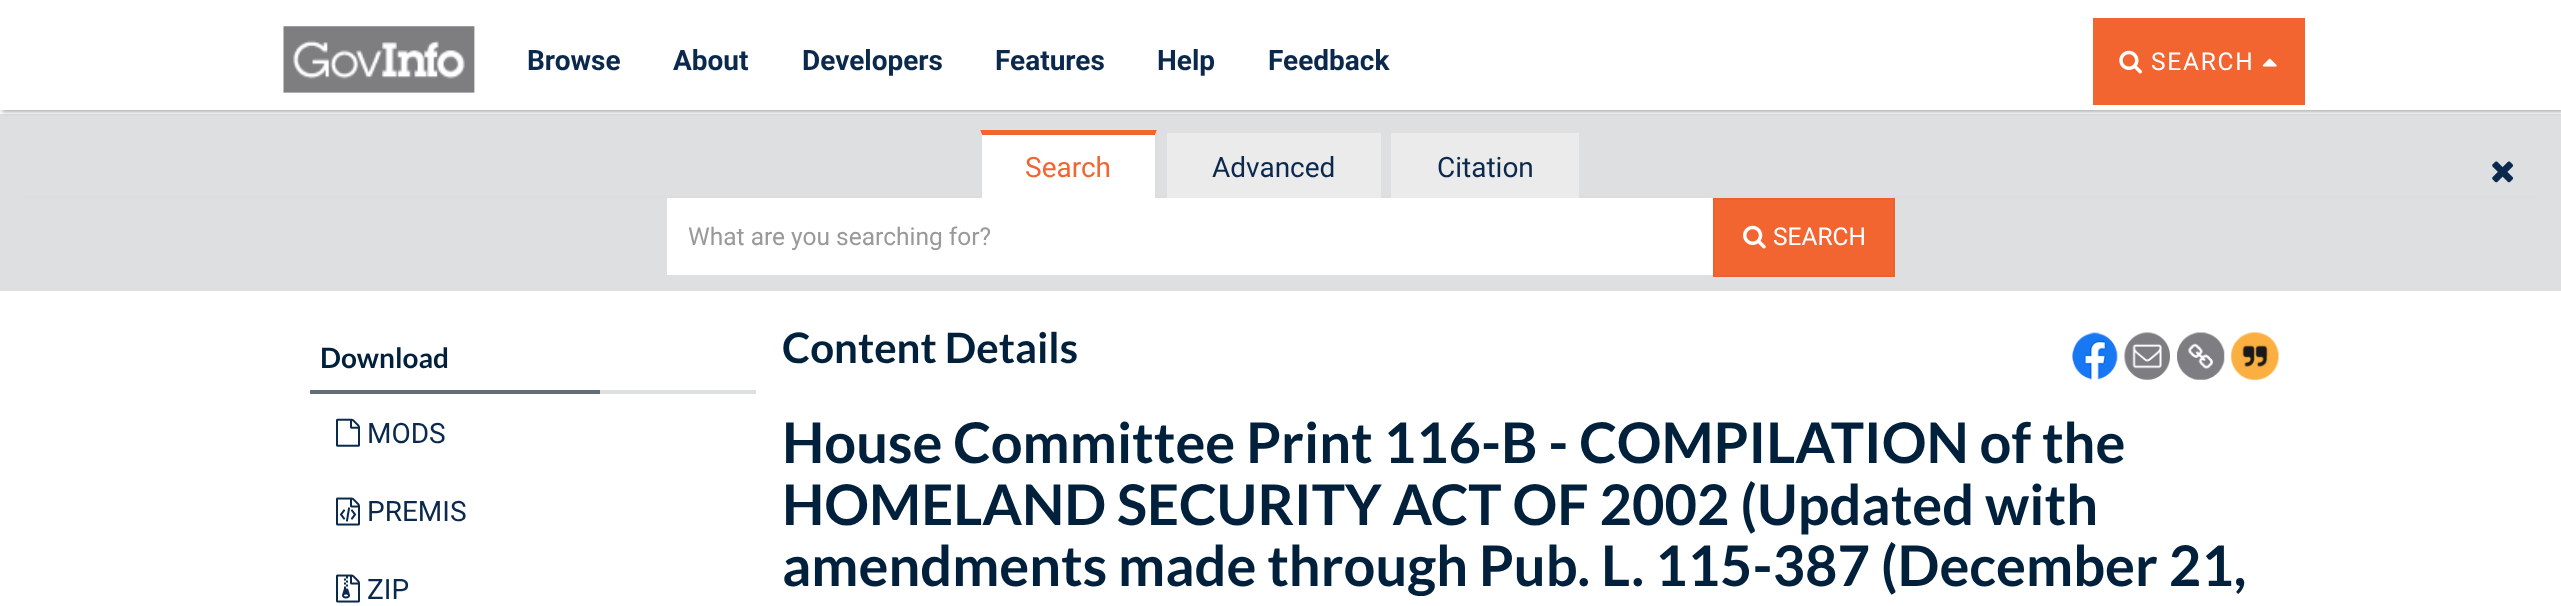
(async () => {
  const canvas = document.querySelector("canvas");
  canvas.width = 2561;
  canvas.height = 606;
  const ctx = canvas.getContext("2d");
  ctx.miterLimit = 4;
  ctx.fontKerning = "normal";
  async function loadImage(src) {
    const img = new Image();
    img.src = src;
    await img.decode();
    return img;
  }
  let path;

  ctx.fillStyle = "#ffffff";
  ctx.fillRect(0, 0, 2561, 606);
  ctx.fillStyle = "#dedfe1";
  ctx.fillRect(0, 114, 2561, 177);
  ctx.save();
  ctx.beginPath();
  ctx.rect(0, 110, 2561, 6);
  ctx.clip();
  ctx.fillStyle = "#acacae";
  ctx.filter = "blur(2px)";
  ctx.beginPath();
  ctx.rect(2, 2, 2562, 110);
  ctx.fill();
  ctx.filter = "none";
  ctx.restore();
  ctx.drawImage(await loadImage("img/1.png"), 283, 26, 192, 67);
  ctx.fillStyle = "#f26531";
  ctx.fillRect(2093, 18, 212, 87);
  ctx.drawImage(await loadImage("img/2.png"), 2119, 50, 23, 24);
  ctx.drawImage(await loadImage("img/3.png"), 2262, 58, 15, 9);
  ctx.fillStyle = "#dddddd";
  ctx.fillRect(26, 196, 2510, 2);
  ctx.fillStyle = "#ffffff";
  ctx.fillRect(980, 130, 177, 68);
  ctx.fillStyle = "#f26531";
  path = new Path2D("M980 130H1157L1155 135H982Z");
  ctx.fill(path);
  ctx.fillStyle = "#dddddd";
  path = new Path2D("M1157 130V205L1155 203V135Z");
  ctx.fill(path);
  path = new Path2D("M980 205V130L982 135V203Z");
  ctx.fill(path);
  for (const [x, y, w, h, color] of [
    [1167, 133, 214, 65, "#ebebeb"],
    [1391, 133, 188, 65, "#ebebeb"],
    [667, 198, 1046, 77, "#ffffff"],
  ]) {
    ctx.fillStyle = color;
    ctx.fillRect(x, y, w, h);
  }
  ctx.fillStyle = "#f26531";
  ctx.beginPath();
  ctx.rect(1714, 199, 180, 77);
  ctx.fill();
  ctx.strokeStyle = "#ec622f";
  ctx.lineWidth = 2;
  ctx.stroke();
  ctx.drawImage(await loadImage("img/4.png"), 1743, 225, 23, 24);
  ctx.drawImage(await loadImage("img/5.png"), 2492, 161, 22, 22);
  ctx.fillStyle = "#dedfe1";
  ctx.fillRect(600, 390, 156, 4);
  ctx.fillStyle = "#666e75";
  ctx.fillRect(310, 390, 290, 4);
  ctx.drawImage(await loadImage("img/6.png"), 336, 418, 24, 29);
  ctx.drawImage(await loadImage("img/7.png"), 336, 497, 24, 29);
  ctx.drawImage(await loadImage("img/8.png"), 336, 574, 24, 29);
  ctx.drawImage(await loadImage("img/9.png"), 2072, 332, 46, 48);
  ctx.drawImage(await loadImage("img/10.png"), 2124, 332, 46, 48);
  ctx.drawImage(await loadImage("img/11.png"), 2177, 332, 48, 48);
  ctx.drawImage(await loadImage("img/12.png"), 2231, 332, 48, 48);
  ctx.font = "bold 28px Roboto";
  ctx.fillStyle = "#0b294d";
  for (const [text, x, y] of [
    ["Browse", 527, 70],
    ["About", 673, 70],
    ["Developers", 802, 70],
    ["Features", 995, 70],
    ["Help", 1157, 70],
    ["Feedback", 1268, 70],
  ]) {
    ctx.fillText(text, x, y);
  }
  ctx.letterSpacing = "1.75px";
  ctx.font = "24.5px Roboto";
  ctx.fillStyle = "#ffffff";
  ctx.fillText("SEARCH", 2151, 70);
  ctx.letterSpacing = "0px";
  ctx.font = "28px Roboto";
  ctx.fillStyle = "#f26531";
  ctx.fillText("Search", 1025, 177);
  ctx.fillStyle = "#0b294d";
  ctx.fillText("Advanced", 1212, 177);
  ctx.fillText("Citation", 1437, 177);
  ctx.save();
  ctx.beginPath();
  ctx.rect(688, 222, 1006, 28);
  ctx.clip();
  ctx.font = "24.5px Roboto";
  ctx.fillStyle = "#999999";
  ctx.fillText("What are you searching for?", 688, 245);
  ctx.restore();
  ctx.font = "24.5px Roboto";
  ctx.fillStyle = "#ffffff";
  ctx.fillText("SEARCH", 1773, 245);
  ctx.font = "bold 28px Lato";
  ctx.fillStyle = "#01203b";
  ctx.fillText("Download", 320, 368);
  ctx.font = "28px Roboto";
  ctx.fillStyle = "#0b294d";
  for (const [text, x, y] of [
    ["MODS", 367, 443],
    ["PREMIS", 367, 521],
    ["ZIP", 367, 599],
  ]) {
    ctx.fillText(text, x, y);
  }
  ctx.font = "bold 42px Lato";
  ctx.fillStyle = "#01203b";
  ctx.fillText("Content Details", 782, 363);
  ctx.font = "bold 56px Lato";
  for (const [text, x, y] of [
    ["House Committee Print 116-B - COMPILATION of the", 782, 463],
    ["HOMELAND SECURITY ACT OF 2002 (Updated with", 782, 525],
    ["amendments made through Pub. L. 115-387 (December 21,", 782, 586],
  ]) {
    ctx.fillText(text, x, y);
  }
})();
